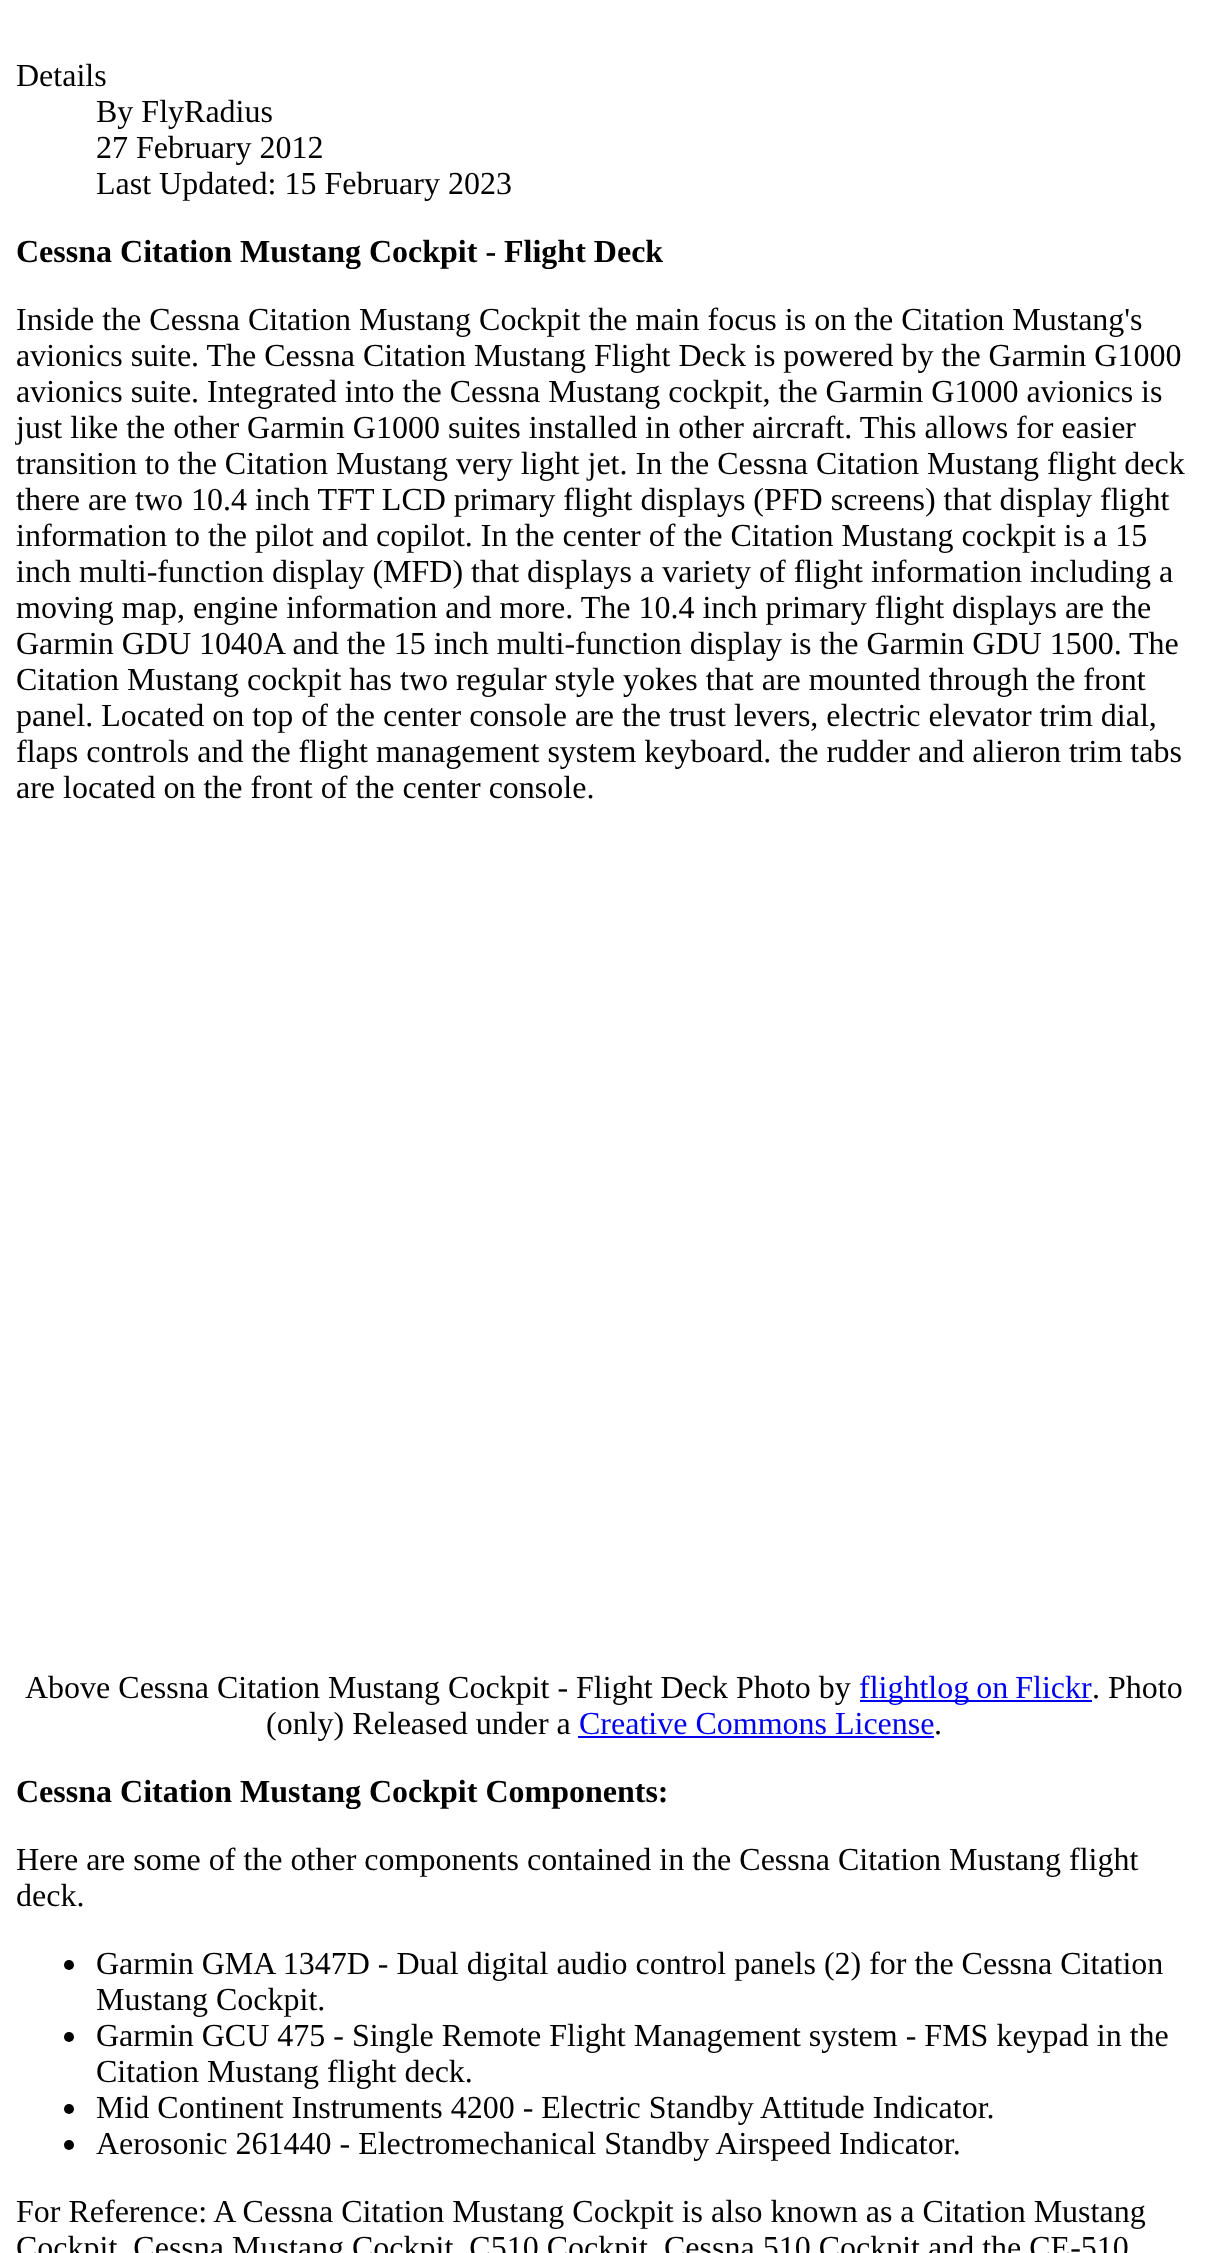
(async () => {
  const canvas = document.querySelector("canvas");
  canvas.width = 1207;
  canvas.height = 2253;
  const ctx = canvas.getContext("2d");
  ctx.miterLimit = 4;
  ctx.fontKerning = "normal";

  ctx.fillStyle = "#ffffff";
  ctx.fillRect(0, 0, 1207, 2253);
  ctx.fillStyle = "#0000ee";
  ctx.fillRect(860, 1700, 232, 2);
  ctx.fillRect(578, 1736, 356, 2);
  ctx.fillStyle = "#000000";
  ctx.beginPath();
  ctx.arc(69, 1965, 5, 0, Math.PI * 2);
  ctx.fill();
  ctx.beginPath();
  ctx.arc(69, 2037, 5, 0, Math.PI * 2);
  ctx.fill();
  ctx.beginPath();
  ctx.arc(69, 2109, 5, 0, Math.PI * 2);
  ctx.fill();
  ctx.beginPath();
  ctx.arc(69, 2145, 5, 0, Math.PI * 2);
  ctx.fill();
  ctx.font = "32px Liberation Serif";
  for (const [text, x, y] of [
    ["Details", 16, 86],
    ["By FlyRadius", 96, 122],
    ["27 February 2012", 96, 158],
    ["Last Updated: 15 February 2023", 96, 194],
  ]) {
    ctx.fillText(text, x, y);
  }
  ctx.font = "bold 32px Liberation Serif";
  ctx.fillText("Cessna Citation Mustang Cockpit - Flight Deck", 16, 262);
  ctx.font = "32px Liberation Serif";
  for (const [text, x, y] of [
    ["Inside the Cessna Citation Mustang Cockpit the main focus is on the Citation Mustang's", 16, 330],
    ["avionics suite. The Cessna Citation Mustang Flight Deck is powered by the Garmin G1000", 16, 366],
    ["avionics suite. Integrated into the Cessna Mustang cockpit, the Garmin G1000 avionics is", 16, 402],
    ["just like the other Garmin G1000 suites installed in other aircraft. This allows for easier", 16, 438],
    ["transition to the Citation Mustang very light jet. In the Cessna Citation Mustang flight deck", 16, 474],
    ["there are two 10.4 inch TFT LCD primary flight displays (PFD screens) that display flight", 16, 510],
    ["information to the pilot and copilot. In the center of the Citation Mustang cockpit is a 15", 16, 546],
    ["inch multi-function display (MFD) that displays a variety of flight information including a", 16, 582],
    ["moving map, engine information and more. The 10.4 inch primary flight displays are the", 16, 618],
    ["Garmin GDU 1040A and the 15 inch multi-function display is the Garmin GDU 1500. The", 16, 654],
    ["Citation Mustang cockpit has two regular style yokes that are mounted through the front", 16, 690],
    ["panel. Located on top of the center console are the trust levers, electric elevator trim dial,", 16, 726],
    ["flaps controls and the flight management system keyboard. the rudder and alieron trim tabs", 16, 762],
    ["are located on the front of the center console.", 16, 798],
    ["Above Cessna Citation Mustang Cockpit - Flight Deck Photo by", 25, 1698],
  ]) {
    ctx.fillText(text, x, y);
  }
  ctx.wordSpacing = "-1px";
  ctx.fillStyle = "#0000ee";
  ctx.fillText("flightlog on Flickr", 859, 1698);
  ctx.wordSpacing = "0px";
  ctx.fillStyle = "#000000";
  ctx.fillText(". Photo", 1092, 1698);
  ctx.fillText("(only) Released under a", 266, 1734);
  ctx.fillStyle = "#0000ee";
  ctx.fillText("Creative Commons License", 579, 1734);
  ctx.fillStyle = "#000000";
  ctx.fillText(".", 934, 1734);
  ctx.font = "bold 32px Liberation Serif";
  ctx.fillText("Cessna Citation Mustang Cockpit Components:", 16, 1802);
  ctx.font = "32px Liberation Serif";
  for (const [text, x, y] of [
    ["Here are some of the other components contained in the Cessna Citation Mustang flight", 16, 1870],
    ["deck.", 16, 1906],
    ["Garmin GMA 1347D - Dual digital audio control panels (2) for the Cessna Citation", 96, 1974],
    ["Mustang Cockpit.", 96, 2010],
    ["Garmin GCU 475 - Single Remote Flight Management system - FMS keypad in the", 96, 2046],
    ["Citation Mustang flight deck.", 96, 2082],
    ["Mid Continent Instruments 4200 - Electric Standby Attitude Indicator.", 96, 2118],
    ["Aerosonic 261440 - Electromechanical Standby Airspeed Indicator.", 96, 2154],
    ["For Reference: A Cessna Citation Mustang Cockpit is also known as a Citation Mustang", 16, 2222],
    ["Cockpit, Cessna Mustang Cockpit, C510 Cockpit, Cessna 510 Cockpit and the CE-510", 16, 2258],
  ]) {
    ctx.fillText(text, x, y);
  }
})();
